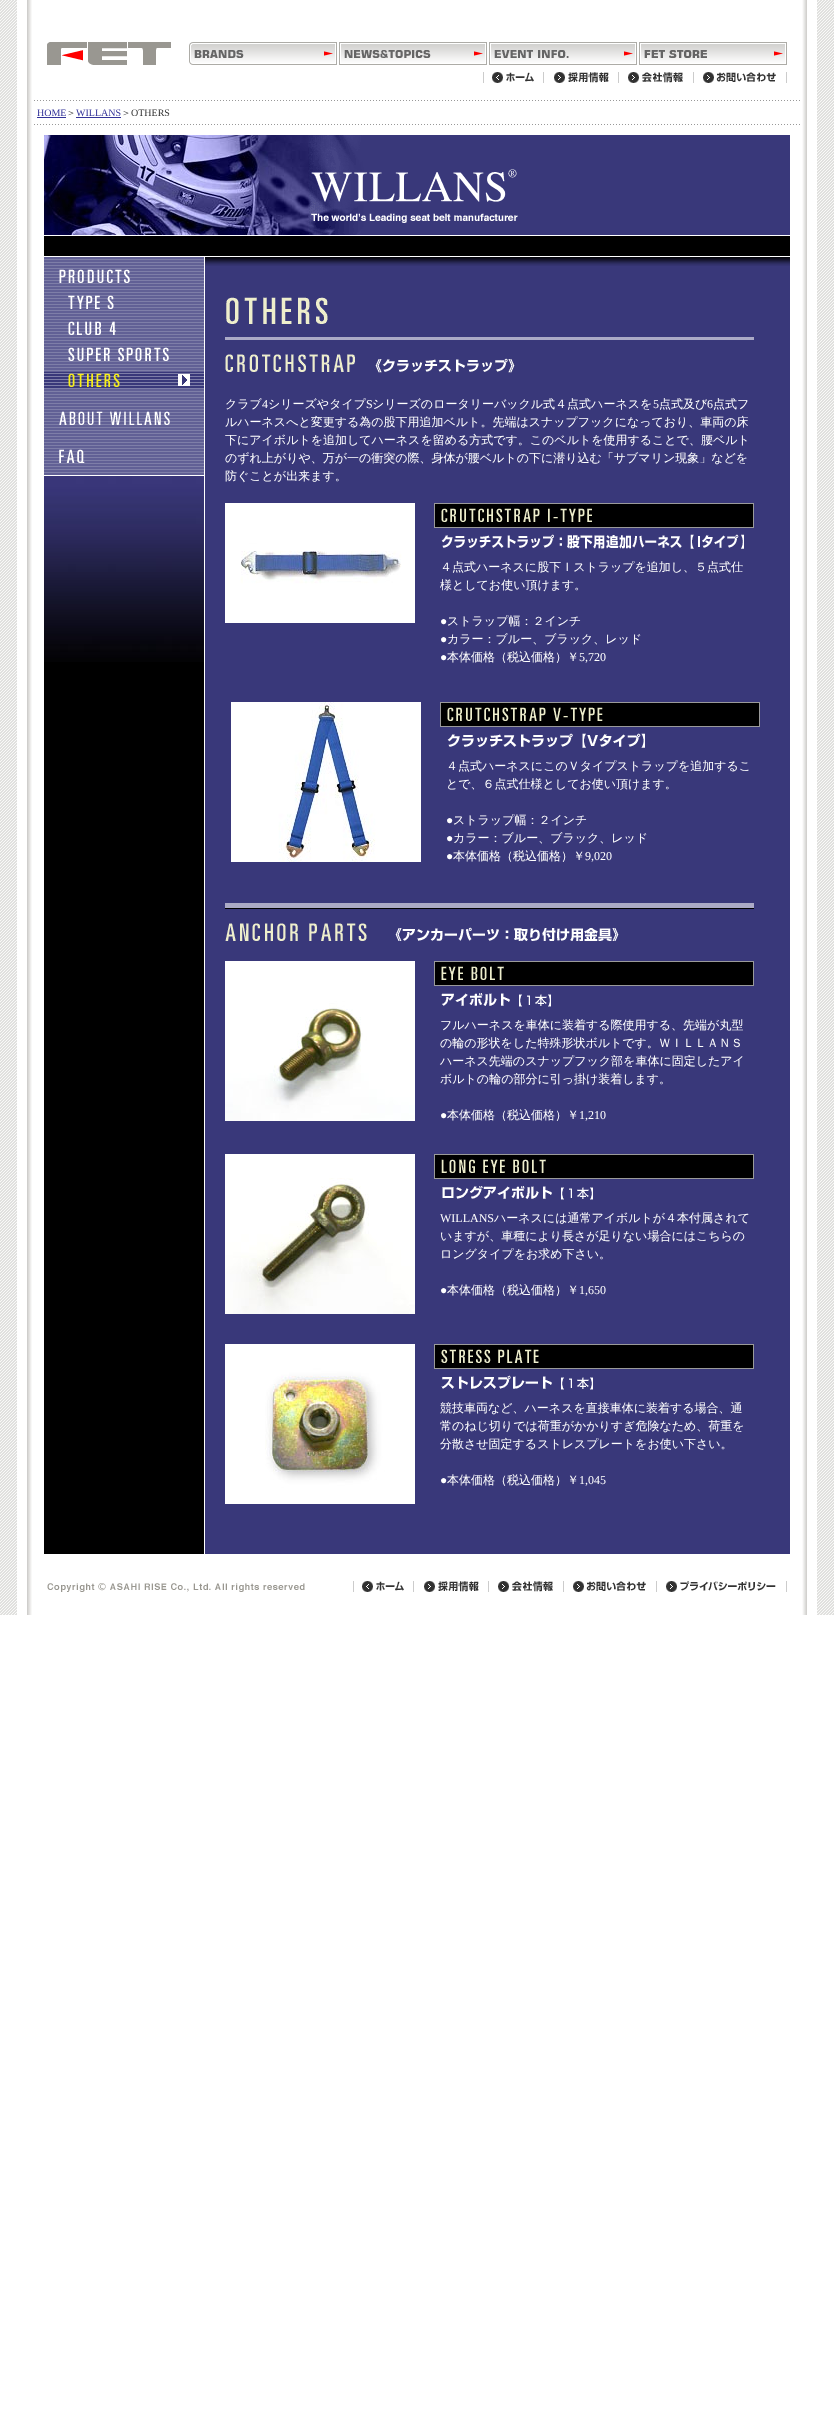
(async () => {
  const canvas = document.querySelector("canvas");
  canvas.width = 834;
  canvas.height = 2419;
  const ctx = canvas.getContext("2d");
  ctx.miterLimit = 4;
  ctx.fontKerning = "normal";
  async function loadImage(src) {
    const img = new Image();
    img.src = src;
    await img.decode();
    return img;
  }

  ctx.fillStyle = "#ffffff";
  ctx.fillRect(0, 0, 834, 2419);
  ctx.drawImage(await loadImage("img/1.png"), 0, 0, 17, 1615);
  ctx.drawImage(await loadImage("img/2.png"), 27, 0, 780, 1615);
  ctx.drawImage(await loadImage("img/3.png"), 47, 42, 124, 23);
  ctx.drawImage(await loadImage("img/4.png"), 189, 42, 148, 23);
  ctx.drawImage(await loadImage("img/5.png"), 339, 42, 148, 23);
  ctx.drawImage(await loadImage("img/6.png"), 489, 42, 148, 23);
  ctx.drawImage(await loadImage("img/7.png"), 639, 42, 148, 23);
  ctx.drawImage(await loadImage("img/8.png"), 483, 72, 51, 11);
  ctx.drawImage(await loadImage("img/9.png"), 543, 72, 66, 11);
  ctx.drawImage(await loadImage("img/10.png"), 618, 72, 76, 11);
  ctx.drawImage(await loadImage("img/11.png"), 703, 72, 84, 11);
  ctx.drawImage(await loadImage("img/12.png"), 34, 100, 766, 1);
  ctx.fillStyle = "#333399";
  ctx.fillRect(37, 117, 29, 1);
  ctx.fillRect(76, 117, 45, 1);
  ctx.drawImage(await loadImage("img/12.png"), 34, 124, 766, 1);
  ctx.fillStyle = "#39387a";
  ctx.fillRect(518, 135, 272, 100);
  ctx.drawImage(await loadImage("img/13.png"), 44, 135, 265, 100);
  ctx.drawImage(await loadImage("img/14.png"), 309, 135, 209, 100);
  ctx.fillStyle = "#000000";
  ctx.fillRect(44, 236, 746, 20);
  ctx.fillRect(44, 662, 160, 892);
  ctx.drawImage(await loadImage("img/15.png"), 44, 257, 160, 11);
  ctx.drawImage(await loadImage("img/16.png"), 44, 268, 160, 16);
  ctx.drawImage(await loadImage("img/17.png"), 44, 284, 160, 10);
  ctx.drawImage(await loadImage("img/18.png"), 44, 294, 160, 16);
  ctx.drawImage(await loadImage("img/19.png"), 44, 310, 160, 10);
  ctx.drawImage(await loadImage("img/20.png"), 44, 320, 160, 16);
  ctx.drawImage(await loadImage("img/21.png"), 44, 336, 160, 10);
  ctx.drawImage(await loadImage("img/22.png"), 44, 346, 160, 16);
  ctx.drawImage(await loadImage("img/17.png"), 44, 362, 160, 10);
  ctx.drawImage(await loadImage("img/23.png"), 44, 372, 160, 16);
  ctx.drawImage(await loadImage("img/24.png"), 44, 388, 160, 22);
  ctx.drawImage(await loadImage("img/25.png"), 44, 410, 160, 16);
  ctx.drawImage(await loadImage("img/26.png"), 44, 426, 160, 22);
  ctx.drawImage(await loadImage("img/27.png"), 44, 448, 160, 16);
  ctx.drawImage(await loadImage("img/28.png"), 44, 464, 160, 12);
  ctx.drawImage(await loadImage("img/29.png"), 44, 476, 160, 186);
  ctx.fillStyle = "#39387a";
  ctx.fillRect(205, 266, 585, 1288);
  ctx.drawImage(await loadImage("img/30.png"), 205, 257, 585, 9);
  ctx.drawImage(await loadImage("img/31.png"), 226, 297, 102, 27);
  ctx.fillStyle = "#abaac6";
  ctx.fillRect(225, 337, 529, 3);
  ctx.drawImage(await loadImage("img/32.png"), 225, 354, 290, 19);
  ctx.drawImage(await loadImage("img/33.png"), 225, 503, 190, 120);
  ctx.drawImage(await loadImage("img/34.png"), 434, 503, 320, 25);
  ctx.drawImage(await loadImage("img/35.png"), 441, 534, 303, 15);
  ctx.drawImage(await loadImage("img/36.png"), 231, 702, 190, 160);
  ctx.drawImage(await loadImage("img/37.png"), 440, 702, 320, 25);
  ctx.drawImage(await loadImage("img/38.png"), 447, 733, 198, 15);
  ctx.fillRect(225, 903, 529, 3);
  ctx.drawImage(await loadImage("img/39.png"), 225, 906, 529, 35);
  ctx.drawImage(await loadImage("img/40.png"), 225, 961, 190, 160);
  ctx.drawImage(await loadImage("img/41.png"), 434, 961, 320, 25);
  ctx.drawImage(await loadImage("img/42.png"), 441, 993, 110, 14);
  ctx.drawImage(await loadImage("img/43.png"), 225, 1154, 190, 160);
  ctx.drawImage(await loadImage("img/44.png"), 434, 1154, 320, 25);
  ctx.drawImage(await loadImage("img/45.png"), 442, 1186, 151, 14);
  ctx.drawImage(await loadImage("img/46.png"), 225, 1344, 190, 160);
  ctx.drawImage(await loadImage("img/47.png"), 434, 1344, 320, 25);
  ctx.drawImage(await loadImage("img/48.png"), 441, 1375, 152, 15);
  ctx.drawImage(await loadImage("img/49.png"), 47, 1583, 258, 9);
  ctx.drawImage(await loadImage("img/8.png"), 353, 1581, 51, 11);
  ctx.drawImage(await loadImage("img/9.png"), 413, 1581, 66, 11);
  ctx.drawImage(await loadImage("img/10.png"), 488, 1581, 76, 11);
  ctx.drawImage(await loadImage("img/11.png"), 573, 1581, 84, 11);
  ctx.drawImage(await loadImage("img/50.png"), 666, 1581, 121, 11);
  ctx.drawImage(await loadImage("img/1.png"), 817, 0, 17, 1615);
  ctx.font = "10px Liberation Serif";
  ctx.fillStyle = "#333399";
  ctx.fillText("HOME", 37, 116);
  ctx.font = "500 10px WenQuanYi Zen Hei";
  ctx.fillStyle = "#333333";
  ctx.fillText("＞", 66, 116);
  ctx.font = "10px Liberation Serif";
  ctx.fillStyle = "#333399";
  ctx.fillText("WILLANS", 76, 116);
  ctx.font = "500 10px WenQuanYi Zen Hei";
  ctx.fillStyle = "#333333";
  ctx.fillText("＞", 121, 116);
  ctx.font = "10px Liberation Serif";
  ctx.fillText("OTHERS", 131, 116);
  ctx.font = "500 12px WenQuanYi Zen Hei";
  ctx.fillStyle = "#ffffff";
  ctx.fillText("クラブ", 225, 408);
  ctx.font = "12px Liberation Serif";
  ctx.fillText("4", 262, 408);
  ctx.font = "500 12px WenQuanYi Zen Hei";
  ctx.fillText("シリーズやタイプ", 268, 408);
  ctx.font = "12px Liberation Serif";
  ctx.fillText("S", 366, 408);
  ctx.font = "500 12px WenQuanYi Zen Hei";
  ctx.fillText("シリーズのロータリーバックル式４点式ハーネスを", 372, 408);
  ctx.font = "12px Liberation Serif";
  ctx.fillText("5", 653, 408);
  ctx.font = "500 12px WenQuanYi Zen Hei";
  ctx.fillText("点式及び", 659, 408);
  ctx.font = "12px Liberation Serif";
  ctx.fillText("6", 707, 408);
  ctx.font = "500 12px WenQuanYi Zen Hei";
  for (const [text, x, y] of [
    ["点式フ", 713, 408],
    ["ルハーネスへと変更する為の股下用追加ベルト。先端はスナップフックになっており、車両の床", 225, 426],
    ["下にアイボルトを追加してハーネスを留める方式です。このベルトを使用することで、腰ベルト", 225, 444],
    ["のずれ上がりや、万が一の衝突の際、身体が腰ベルトの下に潜り込む「サブマリン現象」などを", 225, 462],
    ["防ぐことが出来ます。", 225, 480],
    ["４点式ハーネスに股下Ｉストラップを追加し、５点式仕", 440, 571],
    ["様としてお使い頂けます。", 440, 589],
  ]) {
    ctx.fillText(text, x, y);
  }
  ctx.font = "12px Liberation Serif";
  ctx.fillText("●", 440, 625);
  ctx.font = "500 12px WenQuanYi Zen Hei";
  ctx.fillText("ストラップ幅：２インチ", 447, 625);
  ctx.font = "12px Liberation Serif";
  ctx.fillText("●", 440, 643);
  ctx.font = "500 12px WenQuanYi Zen Hei";
  ctx.fillText("カラー：ブルー、ブラック、レッド", 447, 643);
  ctx.font = "12px Liberation Serif";
  ctx.fillText("●", 440, 661);
  ctx.font = "500 12px WenQuanYi Zen Hei";
  ctx.fillText("本体価格（税込価格）￥", 447, 661);
  ctx.font = "12px Liberation Serif";
  ctx.fillText("5,720", 579, 661);
  ctx.font = "500 12px WenQuanYi Zen Hei";
  ctx.fillText("４点式ハーネスにこのＶタイプストラップを追加するこ", 446, 770);
  ctx.fillText("とで、６点式仕様としてお使い頂けます。", 446, 788);
  ctx.font = "12px Liberation Serif";
  ctx.fillText("●", 446, 824);
  ctx.font = "500 12px WenQuanYi Zen Hei";
  ctx.fillText("ストラップ幅：２インチ", 453, 824);
  ctx.font = "12px Liberation Serif";
  ctx.fillText("●", 446, 842);
  ctx.font = "500 12px WenQuanYi Zen Hei";
  ctx.fillText("カラー：ブルー、ブラック、レッド", 453, 842);
  ctx.font = "12px Liberation Serif";
  ctx.fillText("●", 446, 860);
  ctx.font = "500 12px WenQuanYi Zen Hei";
  ctx.fillText("本体価格（税込価格）￥", 453, 860);
  ctx.font = "12px Liberation Serif";
  ctx.fillText("9,020", 585, 860);
  ctx.font = "500 12px WenQuanYi Zen Hei";
  for (const [text, x, y] of [
    ["フルハーネスを車体に装着する際使用する、先端が丸型", 440, 1029],
    ["の輪の形状をした特殊形状ボルトです。ＷＩＬＬＡＮＳ", 440, 1047],
    ["ハーネス先端のスナップフック部を車体に固定したアイ", 440, 1065],
    ["ボルトの輪の部分に引っ掛け装着します。", 440, 1083],
  ]) {
    ctx.fillText(text, x, y);
  }
  ctx.font = "12px Liberation Serif";
  ctx.fillText("●", 440, 1119);
  ctx.font = "500 12px WenQuanYi Zen Hei";
  ctx.fillText("本体価格（税込価格）￥", 447, 1119);
  ctx.font = "12px Liberation Serif";
  ctx.fillText("1,210", 579, 1119);
  ctx.fillText("WILLANS", 440, 1222);
  ctx.font = "500 12px WenQuanYi Zen Hei";
  for (const [text, x, y] of [
    ["ハーネスには通常アイボルトが４本付属されて", 494, 1222],
    ["いますが、車種により長さが足りない場合にはこちらの", 440, 1240],
    ["ロングタイプをお求め下さい。", 440, 1258],
  ]) {
    ctx.fillText(text, x, y);
  }
  ctx.font = "12px Liberation Serif";
  ctx.fillText("●", 440, 1294);
  ctx.font = "500 12px WenQuanYi Zen Hei";
  ctx.fillText("本体価格（税込価格）￥", 447, 1294);
  ctx.font = "12px Liberation Serif";
  ctx.fillText("1,650", 579, 1294);
  ctx.font = "500 12px WenQuanYi Zen Hei";
  for (const [text, x, y] of [
    ["競技車両など、ハーネスを直接車体に装着する場合、通", 440, 1412],
    ["常のねじ切りでは荷重がかかりすぎ危険なため、荷重を", 440, 1430],
    ["分散させ固定するストレスプレートをお使い下さい。", 440, 1448],
  ]) {
    ctx.fillText(text, x, y);
  }
  ctx.font = "12px Liberation Serif";
  ctx.fillText("●", 440, 1484);
  ctx.font = "500 12px WenQuanYi Zen Hei";
  ctx.fillText("本体価格（税込価格）￥", 447, 1484);
  ctx.font = "12px Liberation Serif";
  ctx.fillText("1,045", 579, 1484);
})();
